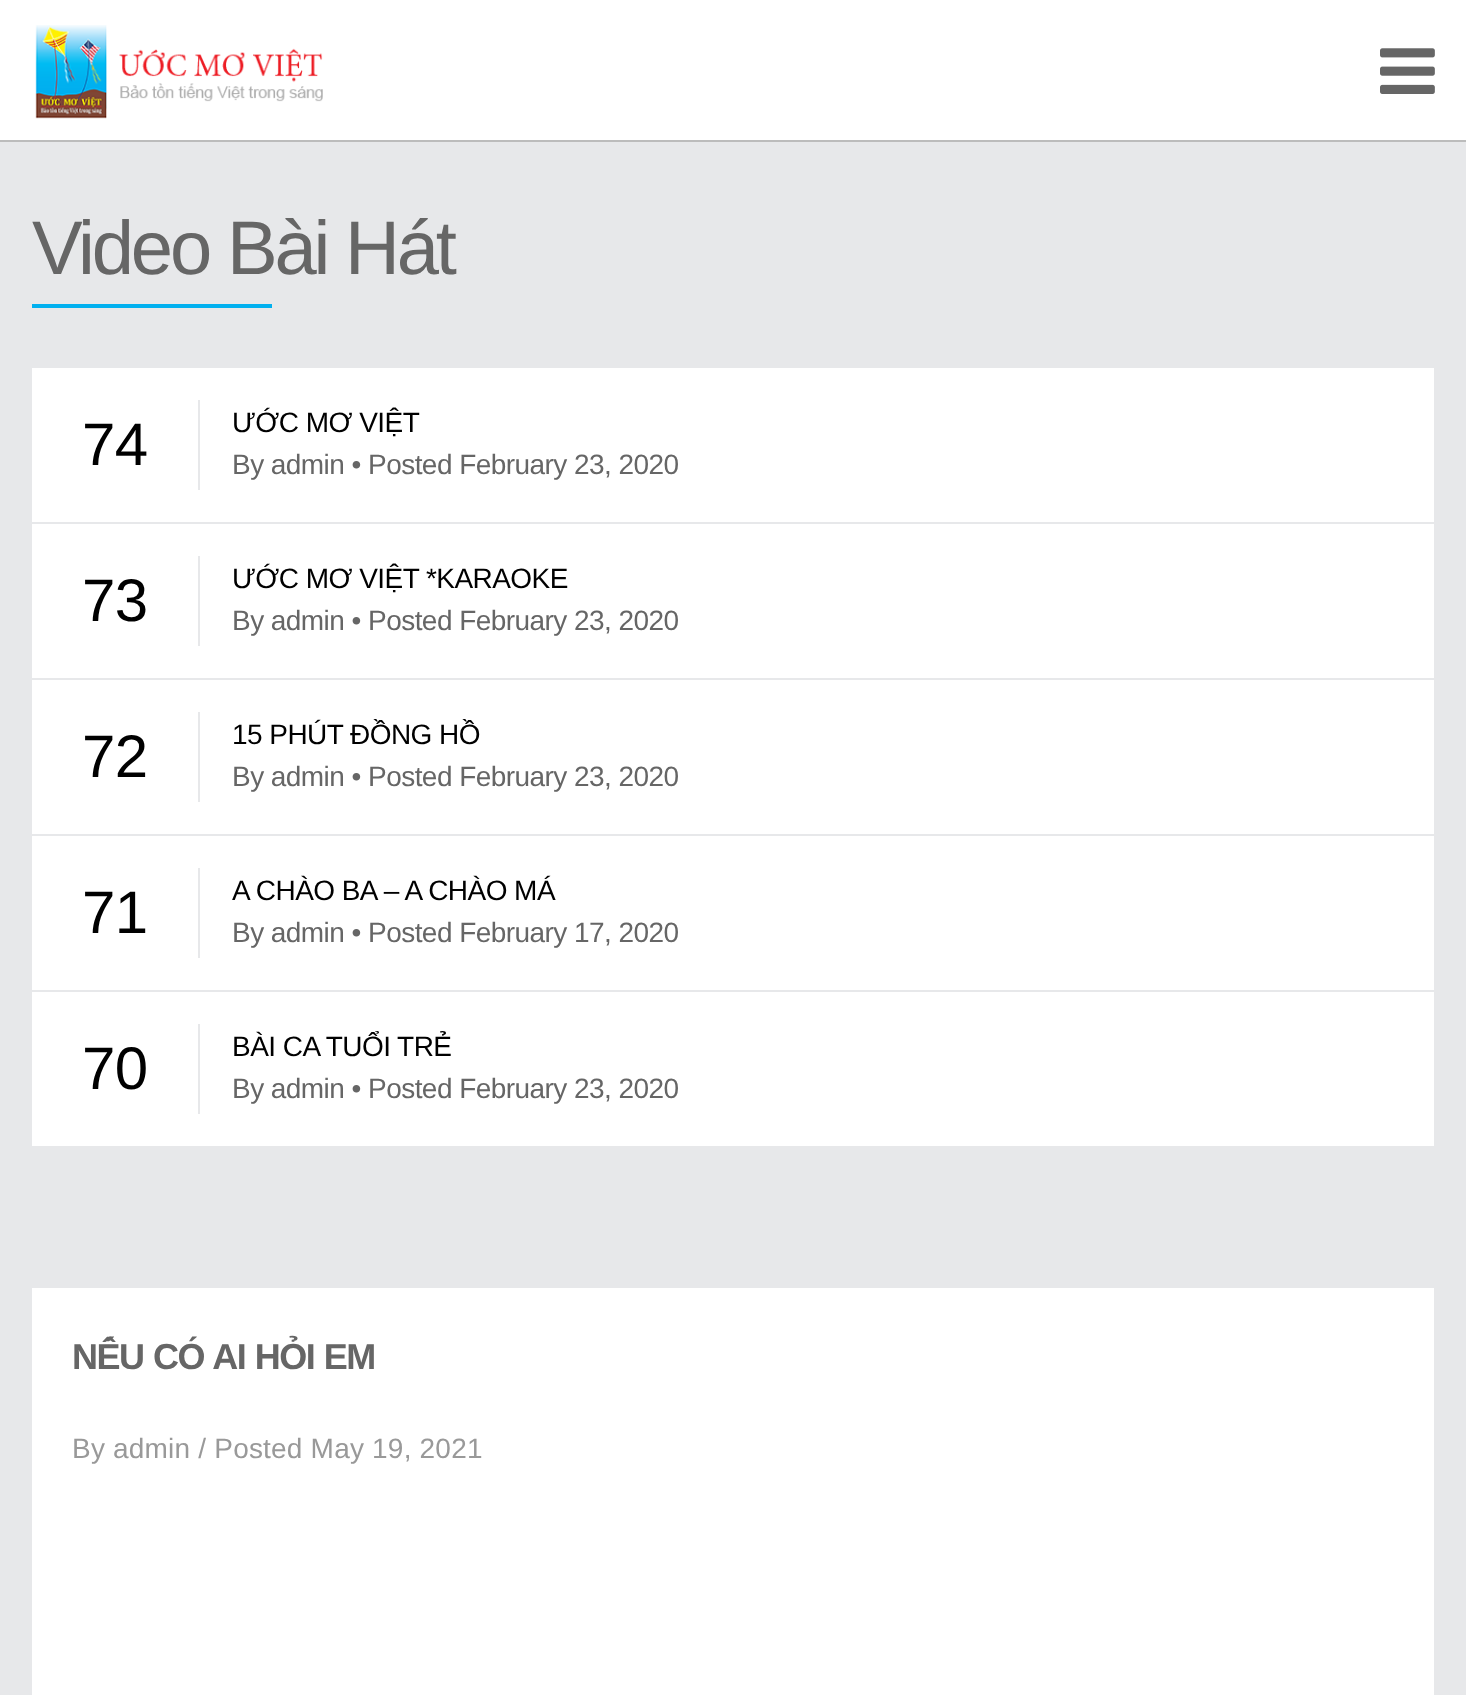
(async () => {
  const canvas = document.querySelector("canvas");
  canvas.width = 1466;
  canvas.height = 1695;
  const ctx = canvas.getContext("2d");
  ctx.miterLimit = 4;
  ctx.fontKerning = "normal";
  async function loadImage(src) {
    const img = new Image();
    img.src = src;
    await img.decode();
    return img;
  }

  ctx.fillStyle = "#e7e8ea";
  ctx.fillRect(0, 0, 1466, 1695);
  ctx.fillStyle = "#ffffff";
  ctx.fillRect(0, 0, 1466, 140);
  ctx.fillStyle = "#bcbcbc";
  ctx.fillRect(0, 140, 1466, 2);
  ctx.drawImage(await loadImage("img/1.png"), 35, 25, 288, 94);
  ctx.drawImage(await loadImage("img/2.png"), 1380, 48, 55, 46);
  for (const [x, y, w, h, color] of [
    [32, 304, 240, 4, "#01b0ef"],
    [32, 368, 1402, 778, "#ffffff"],
    [32, 522, 1402, 2, "#e7e8ea"],
    [198, 400, 2, 90, "#e7e8ea"],
    [32, 678, 1402, 2, "#e7e8ea"],
    [198, 556, 2, 90, "#e7e8ea"],
    [32, 834, 1402, 2, "#e7e8ea"],
    [198, 712, 2, 90, "#e7e8ea"],
    [32, 990, 1402, 2, "#e7e8ea"],
    [198, 868, 2, 90, "#e7e8ea"],
    [198, 1024, 2, 90, "#e7e8ea"],
    [32, 1288, 1402, 407, "#ffffff"],
  ]) {
    ctx.fillStyle = color;
    ctx.fillRect(x, y, w, h);
  }
  ctx.letterSpacing = "-3.2px";
  ctx.font = "76px Liberation Sans";
  ctx.fillStyle = "#666666";
  ctx.fillText("Video Bài Hát", 32, 274);
  ctx.letterSpacing = "-0.55px";
  ctx.font = "60px Liberation Sans";
  ctx.fillStyle = "#000000";
  ctx.fillText("74", 82, 465);
  ctx.font = "28px Liberation Sans";
  ctx.fillText("ƯỚC MƠ VIỆT", 232, 432);
  ctx.fillStyle = "#666666";
  ctx.fillText("By admin • Posted February 23, 2020", 232, 474);
  ctx.font = "60px Liberation Sans";
  ctx.fillStyle = "#000000";
  ctx.fillText("73", 82, 621);
  ctx.font = "28px Liberation Sans";
  ctx.fillText("ƯỚC MƠ VIỆT *KARAOKE", 232, 588);
  ctx.fillStyle = "#666666";
  ctx.fillText("By admin • Posted February 23, 2020", 232, 630);
  ctx.font = "60px Liberation Sans";
  ctx.fillStyle = "#000000";
  ctx.fillText("72", 82, 777);
  ctx.font = "28px Liberation Sans";
  ctx.fillText("15 PHÚT ĐỒNG HỒ", 232, 744);
  ctx.fillStyle = "#666666";
  ctx.fillText("By admin • Posted February 23, 2020", 232, 786);
  ctx.font = "60px Liberation Sans";
  ctx.fillStyle = "#000000";
  ctx.fillText("71", 82, 933);
  ctx.font = "28px Liberation Sans";
  ctx.fillText("A CHÀO BA – A CHÀO MÁ", 232, 900);
  ctx.fillStyle = "#666666";
  ctx.fillText("By admin • Posted February 17, 2020", 232, 942);
  ctx.font = "60px Liberation Sans";
  ctx.fillStyle = "#000000";
  ctx.fillText("70", 82, 1089);
  ctx.font = "28px Liberation Sans";
  ctx.fillText("BÀI CA TUỔI TRẺ", 232, 1056);
  ctx.fillStyle = "#666666";
  ctx.fillText("By admin • Posted February 23, 2020", 232, 1098);
  ctx.letterSpacing = "-1.5px";
  ctx.wordSpacing = "1px";
  ctx.font = "bold 36px Liberation Sans";
  ctx.fillText("NẾU CÓ AI HỎI EM", 72, 1369);
  ctx.letterSpacing = "0.2px";
  ctx.wordSpacing = "0px";
  ctx.font = "28px Liberation Sans";
  ctx.fillStyle = "#999999";
  ctx.fillText("By admin / Posted May 19, 2021", 72, 1458);
})();
